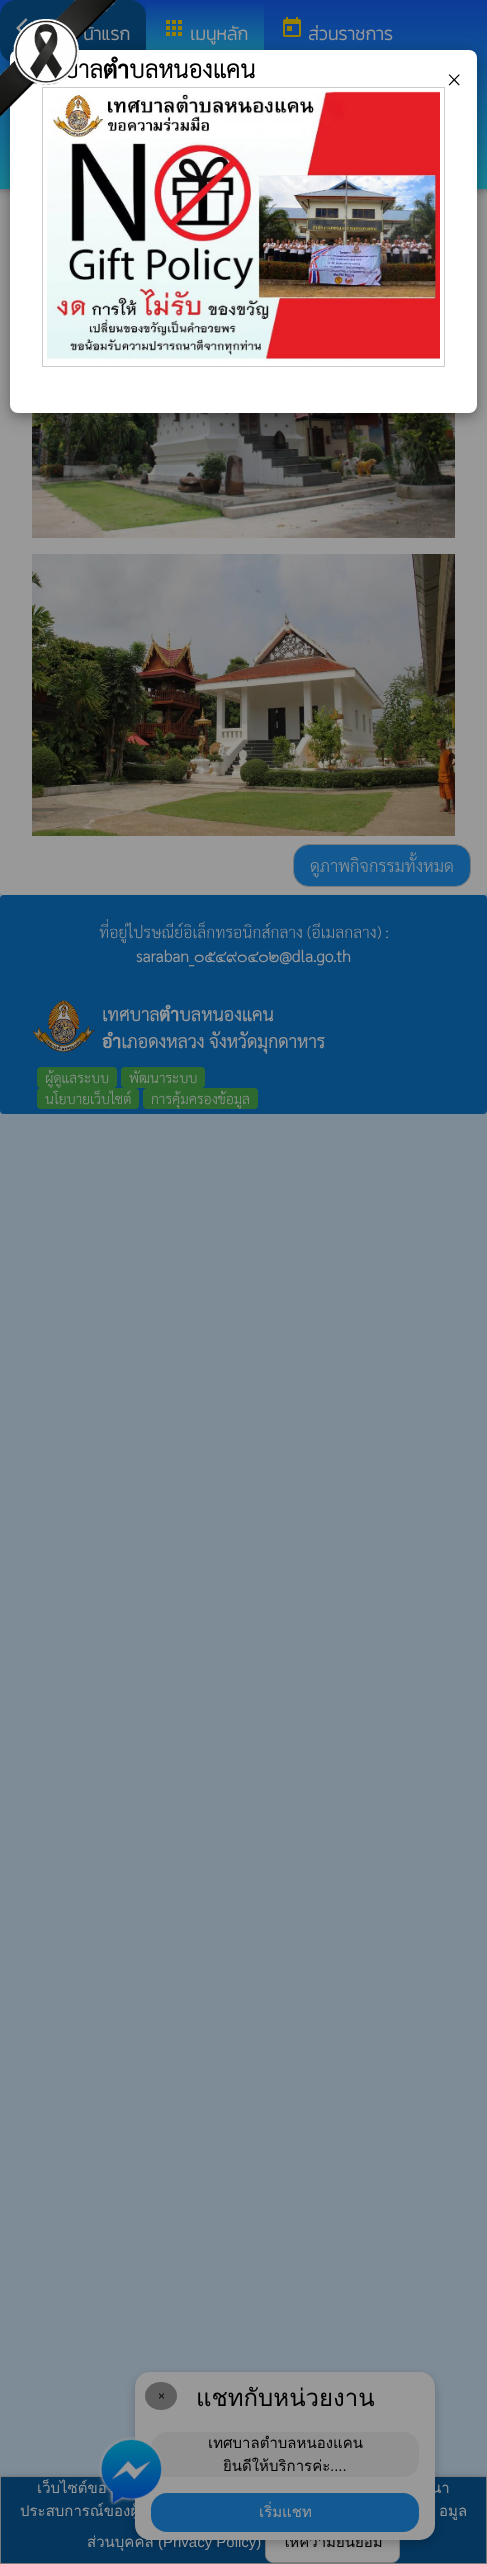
<svg xmlns="http://www.w3.org/2000/svg" width="487" height="2564" viewBox="0 0 487 2564">
  <defs>
    <linearGradient id="g1" gradientUnits="userSpaceOnUse" x1="244" y1="0" x2="244" y2="189"><stop offset="0" stop-color="rgb(11,59,153)"/><stop offset="1" stop-color="rgb(26,134,153)"/></linearGradient>
    <linearGradient id="g2" gradientUnits="userSpaceOnUse" x1="205" y1="0" x2="205" y2="63"><stop offset="0" stop-color="rgb(11,59,153)"/><stop offset="1" stop-color="rgb(26,134,153)"/></linearGradient>
    <clipPath id="clip1"><rect x="102" y="1000" width="353" height="54"/></clipPath>
  </defs>
  <rect width="100%" height="100%" fill="rgb(126,140,152)"/>
  <rect x="0" y="189" width="487" height="706" rx="4" fill="rgb(153,153,153)"/>
  <rect x="0" y="2" width="487" height="189" fill="rgba(0,0,0,0.12)" filter="blur(5px)"/>
  <rect x="0" y="2" width="487" height="189" fill="rgba(0,0,0,0.16)" filter="blur(2.5px)"/>
  <rect x="0" y="0" width="487" height="189" fill="url(#g1)"/>
  <rect x="0" y="0" width="146" height="63" rx="16" fill="rgb(5,54,94)"/>
  <path d="M27.5 20L19.5 28L27.5 36L26 38L16 28L26 18Z" fill="rgb(153,153,153)"/>
  <text x="83" y="40" font-family="Kanit" font-size="18" font-weight="bold" fill="rgb(153,153,153)">น้าแรก</text>
  <rect x="146" y="3" width="118" height="47" fill="url(#g2)"/>
  <image x="166" y="20" width="16" height="16" href="pic2.png"/>
  <image x="283" y="17" width="18" height="20" href="pic3.png"/>
  <image x="32" y="413" width="423" height="125" href="pic4.png"/>
  <rect x="10" y="54" width="467" height="363" rx="8" fill="rgba(0,0,0,0.19)" filter="blur(10px)"/>
  <rect x="10" y="54" width="467" height="363" rx="8" fill="rgba(0,0,0,0.2)" filter="blur(5px)"/>
  <rect x="10" y="50" width="467" height="363" rx="8" fill="rgb(255,255,255)"/>
  <text x="63" y="78" font-family="Sarabun" font-size="24" font-weight="bold" fill="rgb(0,0,0)">บาลตำบลหนองแคน</text>
  <rect x="42.5" y="87.5" width="402" height="279" fill="none" stroke="rgb(204,204,204)"/>
  <image x="47" y="91" width="393" height="271" href="pic7.png"/>
  <image x="0" y="0" width="117" height="117" href="pic1.png"/>
  <g font-family="Kanit" font-size="18" font-weight="bold" fill="rgb(153,153,153)">
    <text x="190" y="40">เมนูหลัก</text>
    <text x="308" y="40">ส่วนราชการ</text>
  </g>
  <image x="32" y="554" width="423" height="282" href="pic5.png"/>
  <rect x="293.5" y="844.5" width="177" height="42" rx="15.5" fill="rgb(20,90,146)" stroke="rgb(122,122,122)"/>
  <text x="310" y="872" font-family="Sarabun" font-size="17" font-weight="200" fill="rgb(153,153,153)">ดูภาพกิจกรรมทั้งหมด</text>
  <rect x="0" y="895" width="487" height="219" rx="4" fill="rgb(7,72,125)"/>
  <text x="99" y="938" font-family="Sarabun" font-size="16" font-weight="200" fill="rgb(153,153,153)">ที่อยู่ไปรษณีย์อิเล็กทรอนิกส์กลาง (อีเมลกลาง) :</text>
  <text x="136" y="962" font-family="Sarabun" font-size="16" font-weight="bold" fill="rgb(153,153,153)">saraban_๐๕๔๙๐๔๐๒@dla.go.th</text>
  <image x="32" y="1000" width="64" height="52" href="pic6.png"/>
  <text x="102" y="1021" font-family="Sarabun" font-size="18" font-weight="bold" fill="rgb(153,153,153)">เทศบาลตำบลหนองแคน</text>
  <g clip-path="url(#clip1)">
    <text x="102" y="1048" font-family="Sarabun" font-size="18" font-weight="bold" fill="rgb(153,153,153)">อำเภอดงหลวง จังหวัดมุกดาหาร</text>
  </g>
  <rect x="37" y="1067" width="80" height="21" rx="4" fill="rgb(46,105,48)"/>
  <text x="45" y="1083" font-family="Sarabun" font-size="14" font-weight="200" fill="rgb(153,153,153)">ผู้ดูแลระบบ</text>
  <rect x="121" y="1067" width="84" height="21" rx="4" fill="rgb(46,105,48)"/>
  <text x="129" y="1083" font-family="Sarabun" font-size="14" font-weight="200" fill="rgb(153,153,153)">พัฒนาระบบ</text>
  <rect x="37" y="1088" width="102" height="21" rx="4" fill="rgb(46,105,48)"/>
  <text x="45" y="1104" font-family="Sarabun" font-size="14" font-weight="200" fill="rgb(153,153,153)">นโยบายเว็บไซต์</text>
  <rect x="143" y="1088" width="115" height="21" rx="4" fill="rgb(46,105,48)"/>
  <text x="151" y="1104" font-family="Sarabun" font-size="14" font-weight="200" fill="rgb(153,153,153)">การคุ้มครองข้อมูล</text>
  <text x="447" y="86" font-family="Sarabun" font-size="24" font-weight="200" fill="rgb(0,0,0)">×</text>
  <rect x="0" y="2478" width="487" height="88" fill="rgba(0,0,0,0.12)" filter="blur(5px)"/>
  <rect x="0" y="2478" width="487" height="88" fill="rgba(0,0,0,0.16)" filter="blur(2.5px)"/>
  <rect x="0.5" y="2476.5" width="486" height="87" fill="rgb(5,54,94)" stroke="rgb(122,122,122)"/>
  <rect x="265.5" y="2522.5" width="134" height="40" rx="7.5" fill="rgb(153,153,153)" stroke="rgb(122,122,122)"/>
  <rect x="135" y="2376" width="300" height="168" rx="15" fill="rgba(0,0,0,0.2)" filter="blur(5px)"/>
  <text x="282" y="2547" font-family="Loma" font-size="15" fill="rgb(0,0,0)">ให้ความยินยอม</text>
  <rect x="135" y="2372" width="300" height="168" rx="15" fill="rgb(153,153,153)"/>
  <ellipse cx="161" cy="2396" rx="16" ry="14" fill="rgb(95,95,95)"/>
  <text x="158" y="2400" font-family="Liberation Sans" font-size="12" fill="rgb(0,0,0)">×</text>
  <text x="196" y="2406" font-family="Loma" font-size="24" fill="rgb(0,0,0)">แชทกับหน่วยงาน</text>
  <rect x="151" y="2432" width="268" height="45" rx="16" fill="rgb(145,145,145)"/>
  <g font-family="Loma" font-size="15" fill="rgb(0,0,0)">
    <text x="208" y="2448">เทศบาลตำบลหนองแคน</text>
    <text x="223" y="2471">ยินดีให้บริการค่ะ</text>
  </g>
  <text x="330" y="2471" font-family="Liberation Sans" font-size="15" fill="rgb(0,0,0)">....</text>
  <rect x="151" y="2493" width="268" height="39" rx="16" fill="rgb(20,90,146)"/>
  <g font-family="Loma" font-size="15" fill="rgb(153,153,153)">
    <text x="37" y="2493" word-spacing="-1">เว็บไซต์ขอ</text>
    <text x="20" y="2516" word-spacing="-1">ประสบการณ์ของผู้</text>
  </g>
  <image x="98" y="2436" width="65" height="69" href="pic8.png"/>
  <g font-family="Loma" font-size="15" fill="rgb(153,153,153)">
    <text x="259" y="2517">เริ่มแชท</text>
    <text x="431" y="2493" word-spacing="-1">นา</text>
    <text x="439" y="2516" word-spacing="-1">อมูล</text>
    <text x="87" y="2547">ส่วนบุคคล</text>
  </g>
  <text x="158" y="2547" font-family="Liberation Sans" font-size="15" fill="rgb(153,153,153)">(Privacy Policy)</text>
</svg>
